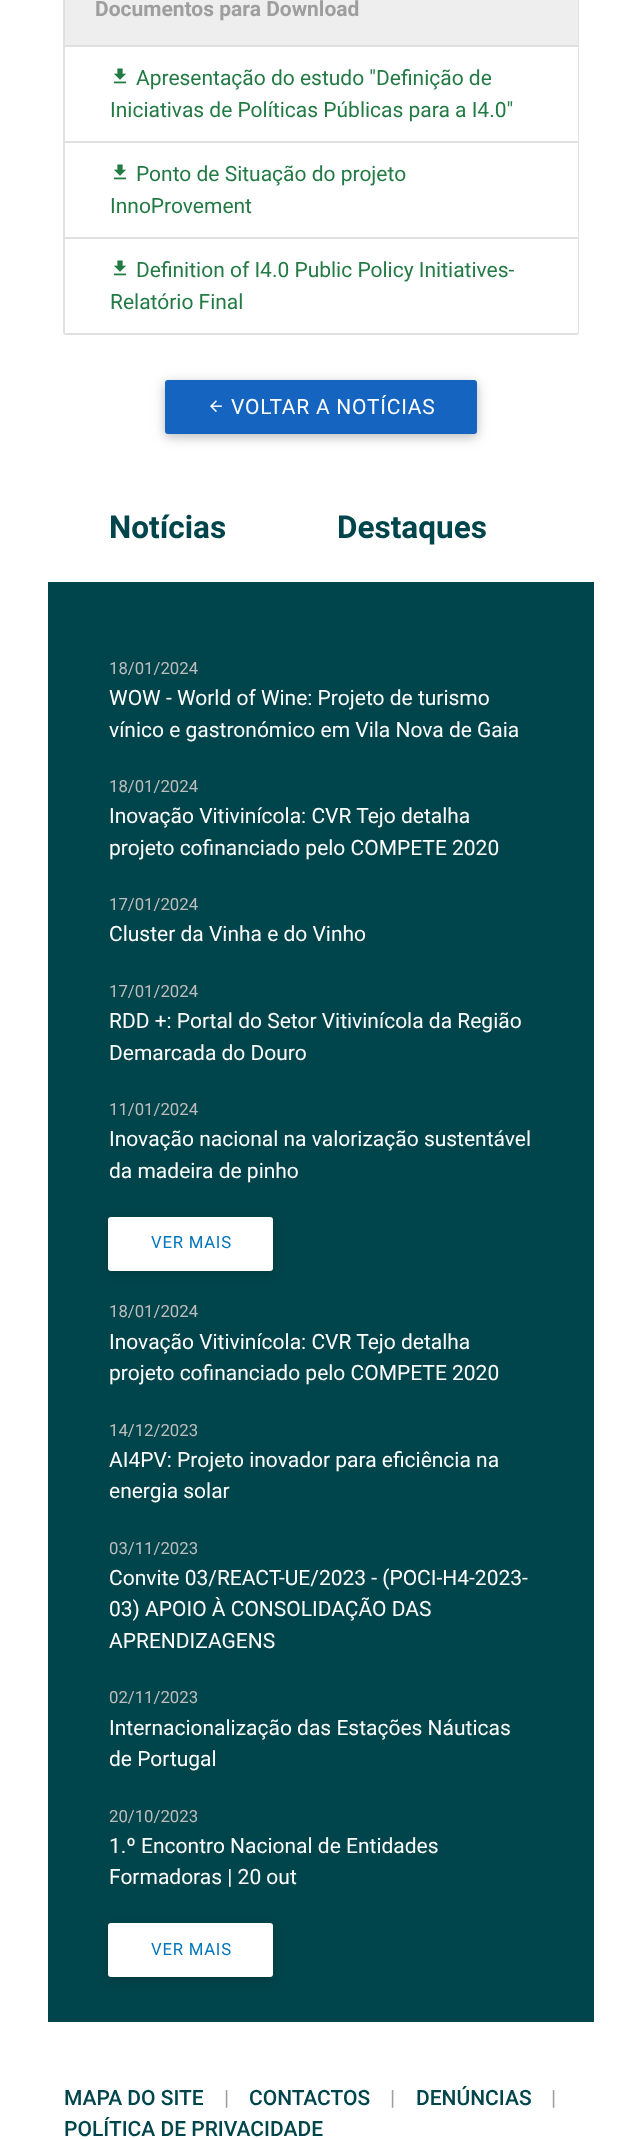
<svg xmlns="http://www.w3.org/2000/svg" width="641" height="2139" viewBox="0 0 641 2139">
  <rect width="100%" height="100%" fill="rgb(255,255,255)"/>
  <rect x="64" y="-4" width="514" height="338" rx="2" fill="none" stroke="rgb(224,224,224)" stroke-width="2"/>
  <rect x="65" y="0" width="513" height="45" fill="rgb(238,238,238)"/>
  <rect x="65" y="45" width="513" height="2" fill="rgb(224,224,224)"/>
  <text x="95" y="16" font-family="Roboto" font-size="21" font-weight="bold" fill="rgb(158,158,158)">Documentos para Download</text>
  <rect x="577" y="47" width="1" height="94" fill="rgb(255,255,255)"/>
  <rect x="65" y="141" width="513" height="2" fill="rgb(224,224,224)"/>
  <image x="113" y="68" width="14" height="16" href="pic1.png"/>
  <g font-family="Roboto" font-size="21" fill="rgb(35,122,68)">
    <text x="136" y="85">Apresentação do estudo "Definição de</text>
    <text x="110" y="117">Iniciativas de Políticas Públicas para a I4.0"</text>
  </g>
  <rect x="577" y="143" width="1" height="94" fill="rgb(255,255,255)"/>
  <rect x="65" y="237" width="513" height="2" fill="rgb(224,224,224)"/>
  <image x="113" y="164" width="14" height="16" href="pic1.png"/>
  <g font-family="Roboto" font-size="21" fill="rgb(35,122,68)">
    <text x="136" y="181">Ponto de Situação do projeto</text>
    <text x="110" y="213">InnoProvement</text>
  </g>
  <path d="M65 239H578V331.5C578 332.5 577.5 333 576.5 333H66.5C65.5 333 65 332.5 65 331.5Z" fill="rgb(255,255,255)"/>
  <image x="113" y="260" width="14" height="16" href="pic1.png"/>
  <g font-family="Roboto" font-size="21" fill="rgb(35,122,68)">
    <text x="136" y="277">Definition of I4.0 Public Policy Initiatives-</text>
    <text x="110" y="309">Relatório Final</text>
  </g>
  <rect x="165" y="383" width="312" height="54" rx="3" fill="rgba(0,0,0,0.12)" filter="blur(7.5px)"/>
  <rect x="165" y="383" width="312" height="54" rx="3" fill="rgba(0,0,0,0.16)" filter="blur(4px)"/>
  <rect x="165" y="380" width="312" height="54" rx="3" fill="rgb(21,101,192)"/>
  <image x="210" y="400" width="12" height="12" href="pic2.png"/>
  <text x="231" y="414" font-family="Roboto" font-size="21" letter-spacing="0.75" fill="rgb(255,255,255)">VOLTAR A NOTÍCIAS</text>
  <g font-family="Roboto" font-size="31.5" font-weight="bold" fill="rgb(0,69,75)">
    <text x="109" y="538">Notícias</text>
    <text x="337" y="538">Destaques</text>
  </g>
  <rect x="48" y="582" width="546" height="1440" fill="rgb(0,69,75)"/>
  <text x="109" y="674" font-family="Roboto" font-size="16.75" fill="rgb(189,189,189)">18/01/2024</text>
  <g font-family="Roboto" font-size="21" fill="rgb(255,255,255)">
    <text>
      <tspan x="109" y="705">WOW - World of Wine: Projeto de turismo</tspan>
      <tspan x="109" y="737">vínico e gastronómico em Vila Nova de Gaia</tspan>
    </text>
  </g>
  <text x="109" y="792" font-family="Roboto" font-size="16.75" fill="rgb(189,189,189)">18/01/2024</text>
  <g font-family="Roboto" font-size="21" fill="rgb(255,255,255)">
    <text>
      <tspan x="109" y="823">Inovação Vitivinícola: CVR Tejo detalha</tspan>
      <tspan x="109" y="855">projeto cofinanciado pelo COMPETE 2020</tspan>
    </text>
  </g>
  <text x="109" y="910" font-family="Roboto" font-size="16.75" fill="rgb(189,189,189)">17/01/2024</text>
  <text x="109" y="941" font-family="Roboto" font-size="21" fill="rgb(255,255,255)">Cluster da Vinha e do Vinho</text>
  <text x="109" y="997" font-family="Roboto" font-size="16.75" fill="rgb(189,189,189)">17/01/2024</text>
  <g font-family="Roboto" font-size="21" fill="rgb(255,255,255)">
    <text>
      <tspan x="109" y="1028">RDD +: Portal do Setor Vitivinícola da Região</tspan>
      <tspan x="109" y="1060">Demarcada do Douro</tspan>
    </text>
  </g>
  <text x="109" y="1115" font-family="Roboto" font-size="16.75" fill="rgb(189,189,189)">11/01/2024</text>
  <g font-family="Roboto" font-size="21" fill="rgb(255,255,255)">
    <text>
      <tspan x="109" y="1146">Inovação nacional na valorização sustentável</tspan>
      <tspan x="109" y="1178">da madeira de pinho</tspan>
    </text>
  </g>
  <rect x="108" y="1220" width="165" height="54" rx="3" fill="rgba(0,0,0,0.16)" filter="blur(4px)"/>
  <rect x="108" y="1217" width="165" height="54" rx="3" fill="rgb(255,255,255)"/>
  <text x="151" y="1248" font-family="Roboto" font-size="16.75" letter-spacing="0.75" fill="rgb(2,119,189)">VER MAIS</text>
  <text x="109" y="1317" font-family="Roboto" font-size="16.75" fill="rgb(189,189,189)">18/01/2024</text>
  <g font-family="Roboto" font-size="21" fill="rgb(255,255,255)">
    <text>
      <tspan x="109" y="1349">Inovação Vitivinícola: CVR Tejo detalha</tspan>
      <tspan x="109" y="1380">projeto cofinanciado pelo COMPETE 2020</tspan>
    </text>
  </g>
  <text x="109" y="1436" font-family="Roboto" font-size="16.75" fill="rgb(189,189,189)">14/12/2023</text>
  <g font-family="Roboto" font-size="21" fill="rgb(255,255,255)">
    <text>
      <tspan x="109" y="1467">AI4PV: Projeto inovador para eficiência na</tspan>
      <tspan x="109" y="1498">energia solar</tspan>
    </text>
  </g>
  <text x="109" y="1554" font-family="Roboto" font-size="16.75" fill="rgb(189,189,189)">03/11/2023</text>
  <g font-family="Roboto" font-size="21" fill="rgb(255,255,255)">
    <text>
      <tspan x="109" y="1585">Convite 03/REACT-UE/2023 - (POCI-H4-2023-</tspan>
      <tspan x="109" y="1616">03) APOIO À CONSOLIDAÇÃO DAS</tspan>
      <tspan x="109" y="1648">APRENDIZAGENS</tspan>
    </text>
  </g>
  <text x="109" y="1703" font-family="Roboto" font-size="16.75" fill="rgb(189,189,189)">02/11/2023</text>
  <g font-family="Roboto" font-size="21" fill="rgb(255,255,255)">
    <text>
      <tspan x="109" y="1735">Internacionalização das Estações Náuticas</tspan>
      <tspan x="109" y="1766">de Portugal</tspan>
    </text>
  </g>
  <text x="109" y="1822" font-family="Roboto" font-size="16.75" fill="rgb(189,189,189)">20/10/2023</text>
  <g font-family="Roboto" font-size="21" fill="rgb(255,255,255)">
    <text>
      <tspan x="109" y="1853">1.º Encontro Nacional de Entidades</tspan>
      <tspan x="109" y="1884">Formadoras | 20 out</tspan>
    </text>
  </g>
  <rect x="108" y="1926" width="165" height="54" rx="3" fill="rgba(0,0,0,0.16)" filter="blur(4px)"/>
  <rect x="108" y="1923" width="165" height="54" rx="3" fill="rgb(255,255,255)"/>
  <text x="151" y="1955" font-family="Roboto" font-size="16.75" letter-spacing="0.75" fill="rgb(2,119,189)">VER MAIS</text>
  <text x="64" y="2105" font-family="Roboto" font-size="21" font-weight="500" fill="rgb(0,69,75)">MAPA DO SITE</text>
  <text x="224" y="2105" font-family="Roboto" font-size="21" fill="rgb(158,158,158)">|</text>
  <text x="249" y="2105" font-family="Roboto" font-size="21" font-weight="500" fill="rgb(0,69,75)">CONTACTOS</text>
  <text x="390" y="2105" font-family="Roboto" font-size="21" fill="rgb(158,158,158)">|</text>
  <text x="416" y="2105" font-family="Roboto" font-size="21" font-weight="500" fill="rgb(0,69,75)">DENÚNCIAS</text>
  <text x="551" y="2105" font-family="Roboto" font-size="21" fill="rgb(158,158,158)">|</text>
  <text x="64" y="2136" font-family="Roboto" font-size="21" font-weight="500" fill="rgb(0,69,75)">POLÍTICA DE PRIVACIDADE</text>
</svg>
